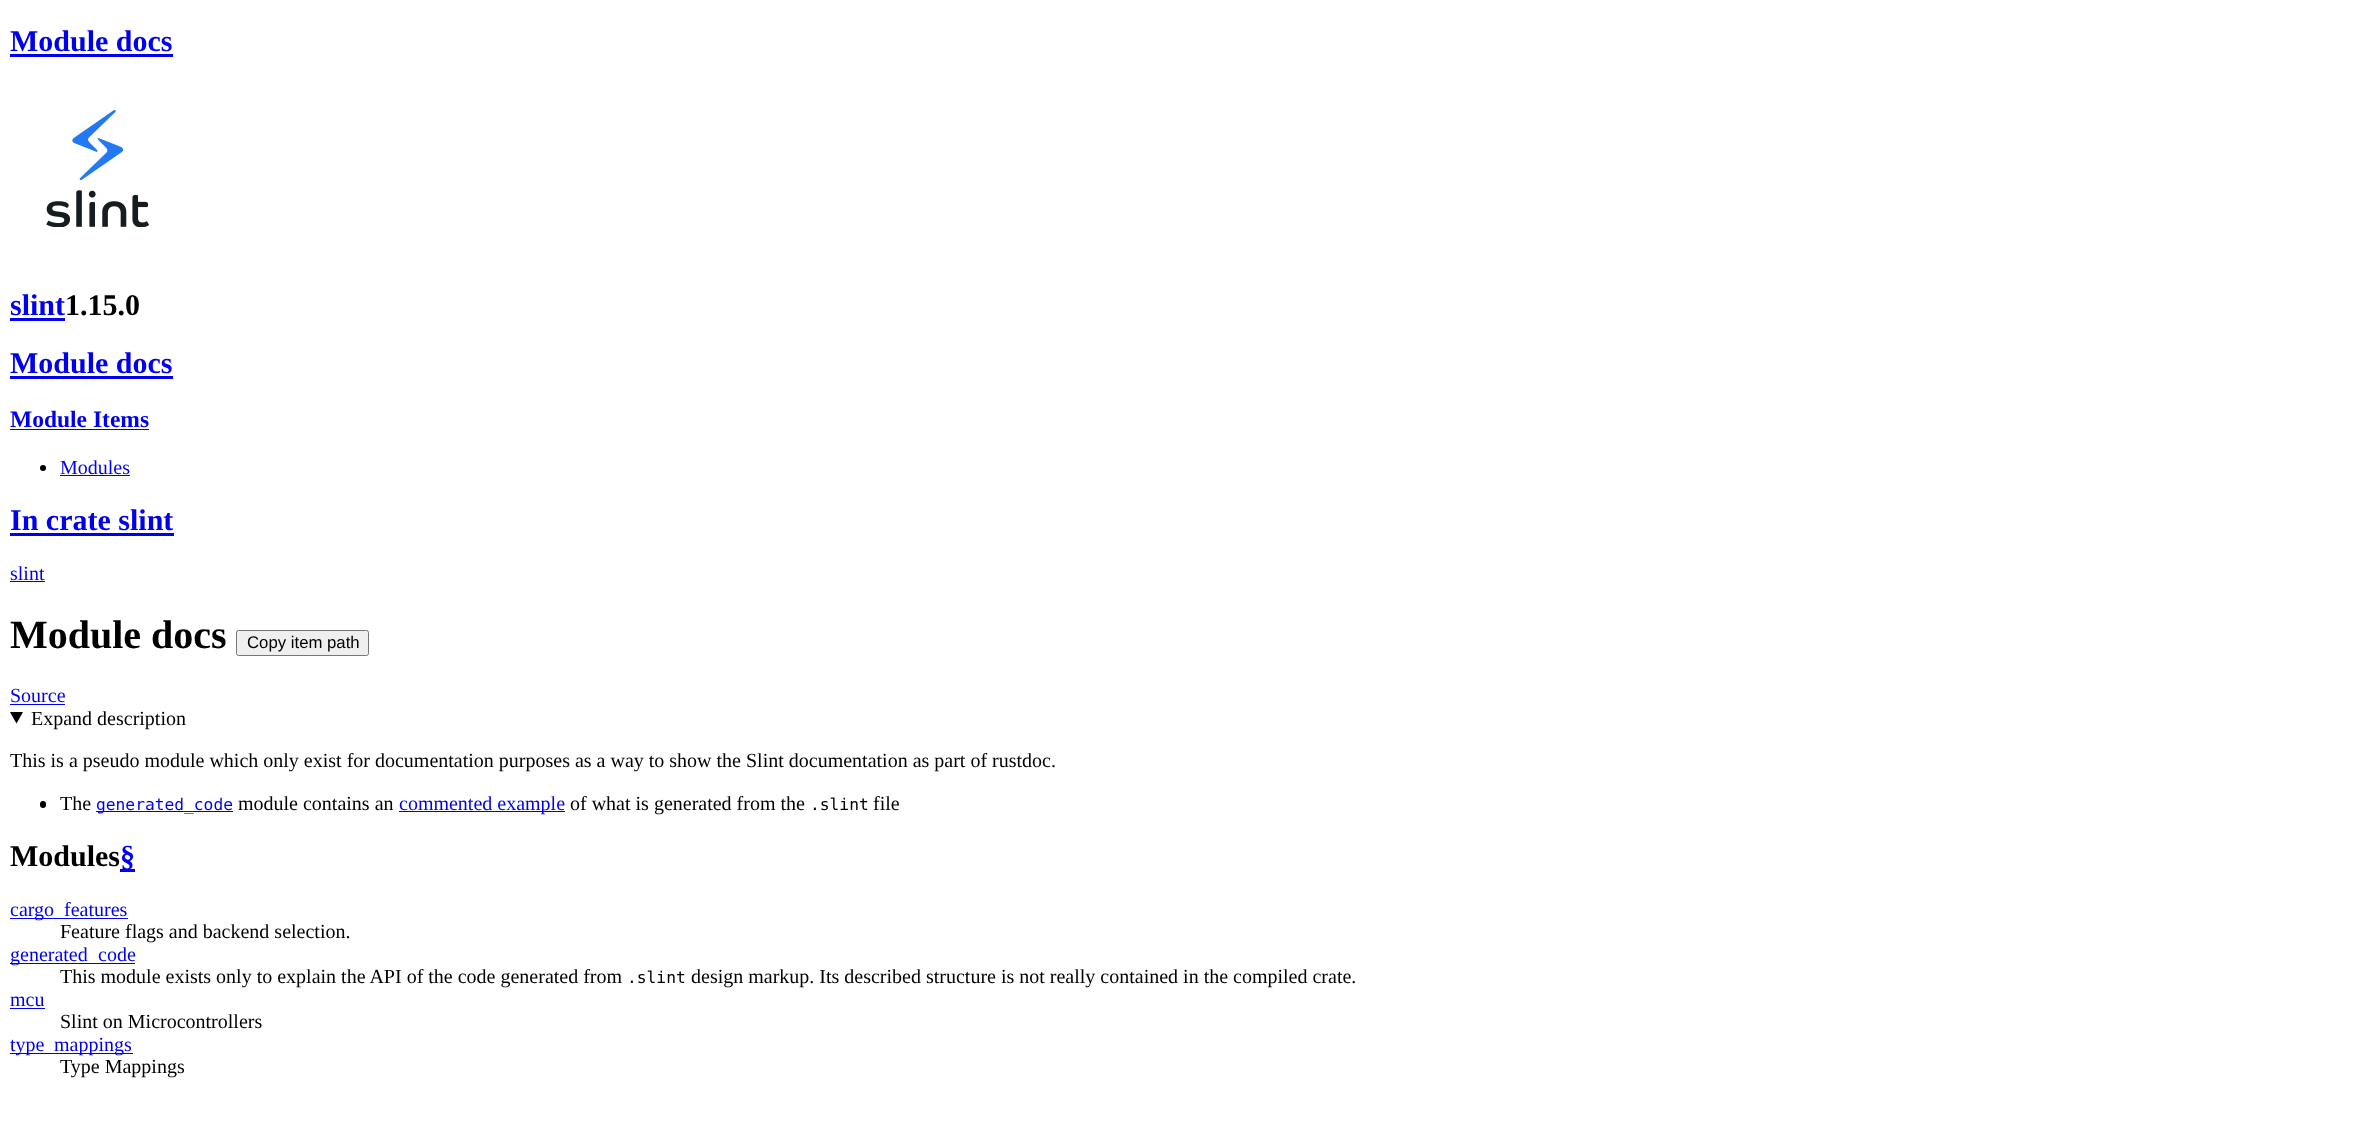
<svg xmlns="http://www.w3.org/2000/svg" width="2359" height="1122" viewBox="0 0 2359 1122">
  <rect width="100%" height="100%" fill="rgb(255,255,255)"/>
  <text x="10" y="51" font-family="Liberation Serif" font-size="30" font-weight="bold" fill="rgb(0,0,238)">Module docs</text>
  <rect x="10" y="54" width="163" height="3" fill="rgb(0,0,238)"/>
  <image x="46" y="110" width="103" height="117" href="pic1.png"/>
  <text x="10" y="315" font-family="Liberation Serif" font-size="30" font-weight="bold" fill="rgb(0,0,238)">slint</text>
  <rect x="10" y="318" width="55" height="3" fill="rgb(0,0,238)"/>
  <text x="65" y="315" font-family="Liberation Serif" font-size="30" font-weight="bold" fill="rgb(0,0,0)">1.15.0</text>
  <text x="10" y="373" font-family="Liberation Serif" font-size="30" font-weight="bold" fill="rgb(0,0,238)">Module docs</text>
  <rect x="10" y="376" width="163" height="3" fill="rgb(0,0,238)"/>
  <text x="10" y="427" font-family="Liberation Serif" font-size="23.5" font-weight="bold" fill="rgb(0,0,238)">Module Items</text>
  <rect x="10" y="429" width="139" height="1" fill="rgb(0,0,238)"/>
  <circle cx="43" cy="468" r="3" fill="rgb(0,0,0)"/>
  <text x="60" y="474" font-family="Liberation Serif" font-size="20" fill="rgb(0,0,238)">Modules</text>
  <rect x="60" y="475" width="70" height="1" fill="rgb(0,0,238)"/>
  <text x="10" y="530" font-family="Liberation Serif" font-size="30" font-weight="bold" fill="rgb(0,0,238)">In crate slint</text>
  <rect x="10" y="533" width="164" height="3" fill="rgb(0,0,238)"/>
  <text x="10" y="580" font-family="Liberation Serif" font-size="20" fill="rgb(0,0,238)">slint</text>
  <rect x="10" y="581" width="35" height="1" fill="rgb(0,0,238)"/>
  <text x="10" y="648" font-family="Liberation Serif" font-size="40" font-weight="bold" fill="rgb(0,0,0)">Module docs</text>
  <rect x="236.5" y="630.5" width="132" height="25" rx="2" fill="rgb(239,239,239)" stroke="rgb(118,118,118)"/>
  <text x="247" y="648" font-family="Liberation Sans" font-size="16.75" fill="rgb(0,0,0)">Copy item path</text>
  <text x="10" y="702" font-family="Liberation Serif" font-size="20" fill="rgb(0,0,238)">Source</text>
  <rect x="10" y="704" width="55" height="1" fill="rgb(0,0,238)"/>
  <path d="M10 712H23L16.5 723.5Z" fill="rgb(0,0,0)"/>
  <g font-family="Liberation Serif" font-size="20" fill="rgb(0,0,0)">
    <text x="31" y="725">Expand description</text>
    <text x="10" y="767">This is a pseudo module which only exist for documentation purposes as a way to show the Slint documentation as part of rustdoc.</text>
  </g>
  <rect x="40" y="801" width="6" height="7" rx="3" fill="rgb(0,0,0)"/>
  <text x="60" y="810" font-family="Liberation Serif" font-size="20" fill="rgb(0,0,0)">The</text>
  <rect x="96" y="811" width="137" height="1" fill="rgb(0,0,238)"/>
  <text x="96" y="810" font-family="DejaVu Sans Mono" font-size="16.25" fill="rgb(0,0,238)">generated_code</text>
  <text x="238" y="810" font-family="Liberation Serif" font-size="20" fill="rgb(0,0,0)">module contains an</text>
  <rect x="399" y="811" width="166" height="1" fill="rgb(0,0,238)"/>
  <text x="399" y="810" font-family="Liberation Serif" font-size="20" fill="rgb(0,0,238)">commented example</text>
  <text x="570" y="810" font-family="Liberation Serif" font-size="20" fill="rgb(0,0,0)">of what is generated from the</text>
  <text x="810" y="810" font-family="DejaVu Sans Mono" font-size="16.25" fill="rgb(0,0,0)">.slint</text>
  <text x="873" y="810" font-family="Liberation Serif" font-size="20" fill="rgb(0,0,0)">file</text>
  <text x="10" y="866" font-family="Liberation Serif" font-size="30" font-weight="bold" fill="rgb(0,0,0)">Modules</text>
  <rect x="120" y="869" width="15" height="3" fill="rgb(0,0,238)"/>
  <text x="120" y="866" font-family="Liberation Serif" font-size="30" font-weight="bold" fill="rgb(0,0,238)">§</text>
  <rect x="10" y="918" width="118" height="1" fill="rgb(0,0,238)"/>
  <g font-family="Liberation Serif" font-size="20" fill="rgb(0,0,238)">
    <text x="10" y="916">cargo</text>
    <text x="64" y="916">features</text>
  </g>
  <text x="60" y="938" font-family="Liberation Serif" font-size="20" fill="rgb(0,0,0)">Feature flags and backend selection.</text>
  <rect x="10" y="963" width="125" height="1" fill="rgb(0,0,238)"/>
  <g font-family="Liberation Serif" font-size="20" fill="rgb(0,0,238)">
    <text x="10" y="961">generated</text>
    <text x="98" y="961">code</text>
  </g>
  <text x="60" y="983" font-family="Liberation Serif" font-size="20" fill="rgb(0,0,0)">This module exists only to explain the API of the code generated from</text>
  <text x="627" y="983" font-family="DejaVu Sans Mono" font-size="16.25" fill="rgb(0,0,0)">.slint</text>
  <text x="691" y="983" font-family="Liberation Serif" font-size="20" fill="rgb(0,0,0)">design markup. Its described structure is not really contained in the compiled crate.</text>
  <text x="10" y="1006" font-family="Liberation Serif" font-size="20" fill="rgb(0,0,238)">mcu</text>
  <rect x="10" y="1008" width="35" height="1" fill="rgb(0,0,238)"/>
  <text x="60" y="1028" font-family="Liberation Serif" font-size="20" fill="rgb(0,0,0)">Slint on Microcontrollers</text>
  <rect x="10" y="1053" width="123" height="1" fill="rgb(0,0,238)"/>
  <g font-family="Liberation Serif" font-size="20" fill="rgb(0,0,238)">
    <text x="10" y="1051">type</text>
    <text x="54" y="1051">mappings</text>
  </g>
  <text x="60" y="1073" font-family="Liberation Serif" font-size="20" fill="rgb(0,0,0)">Type Mappings</text>
</svg>
